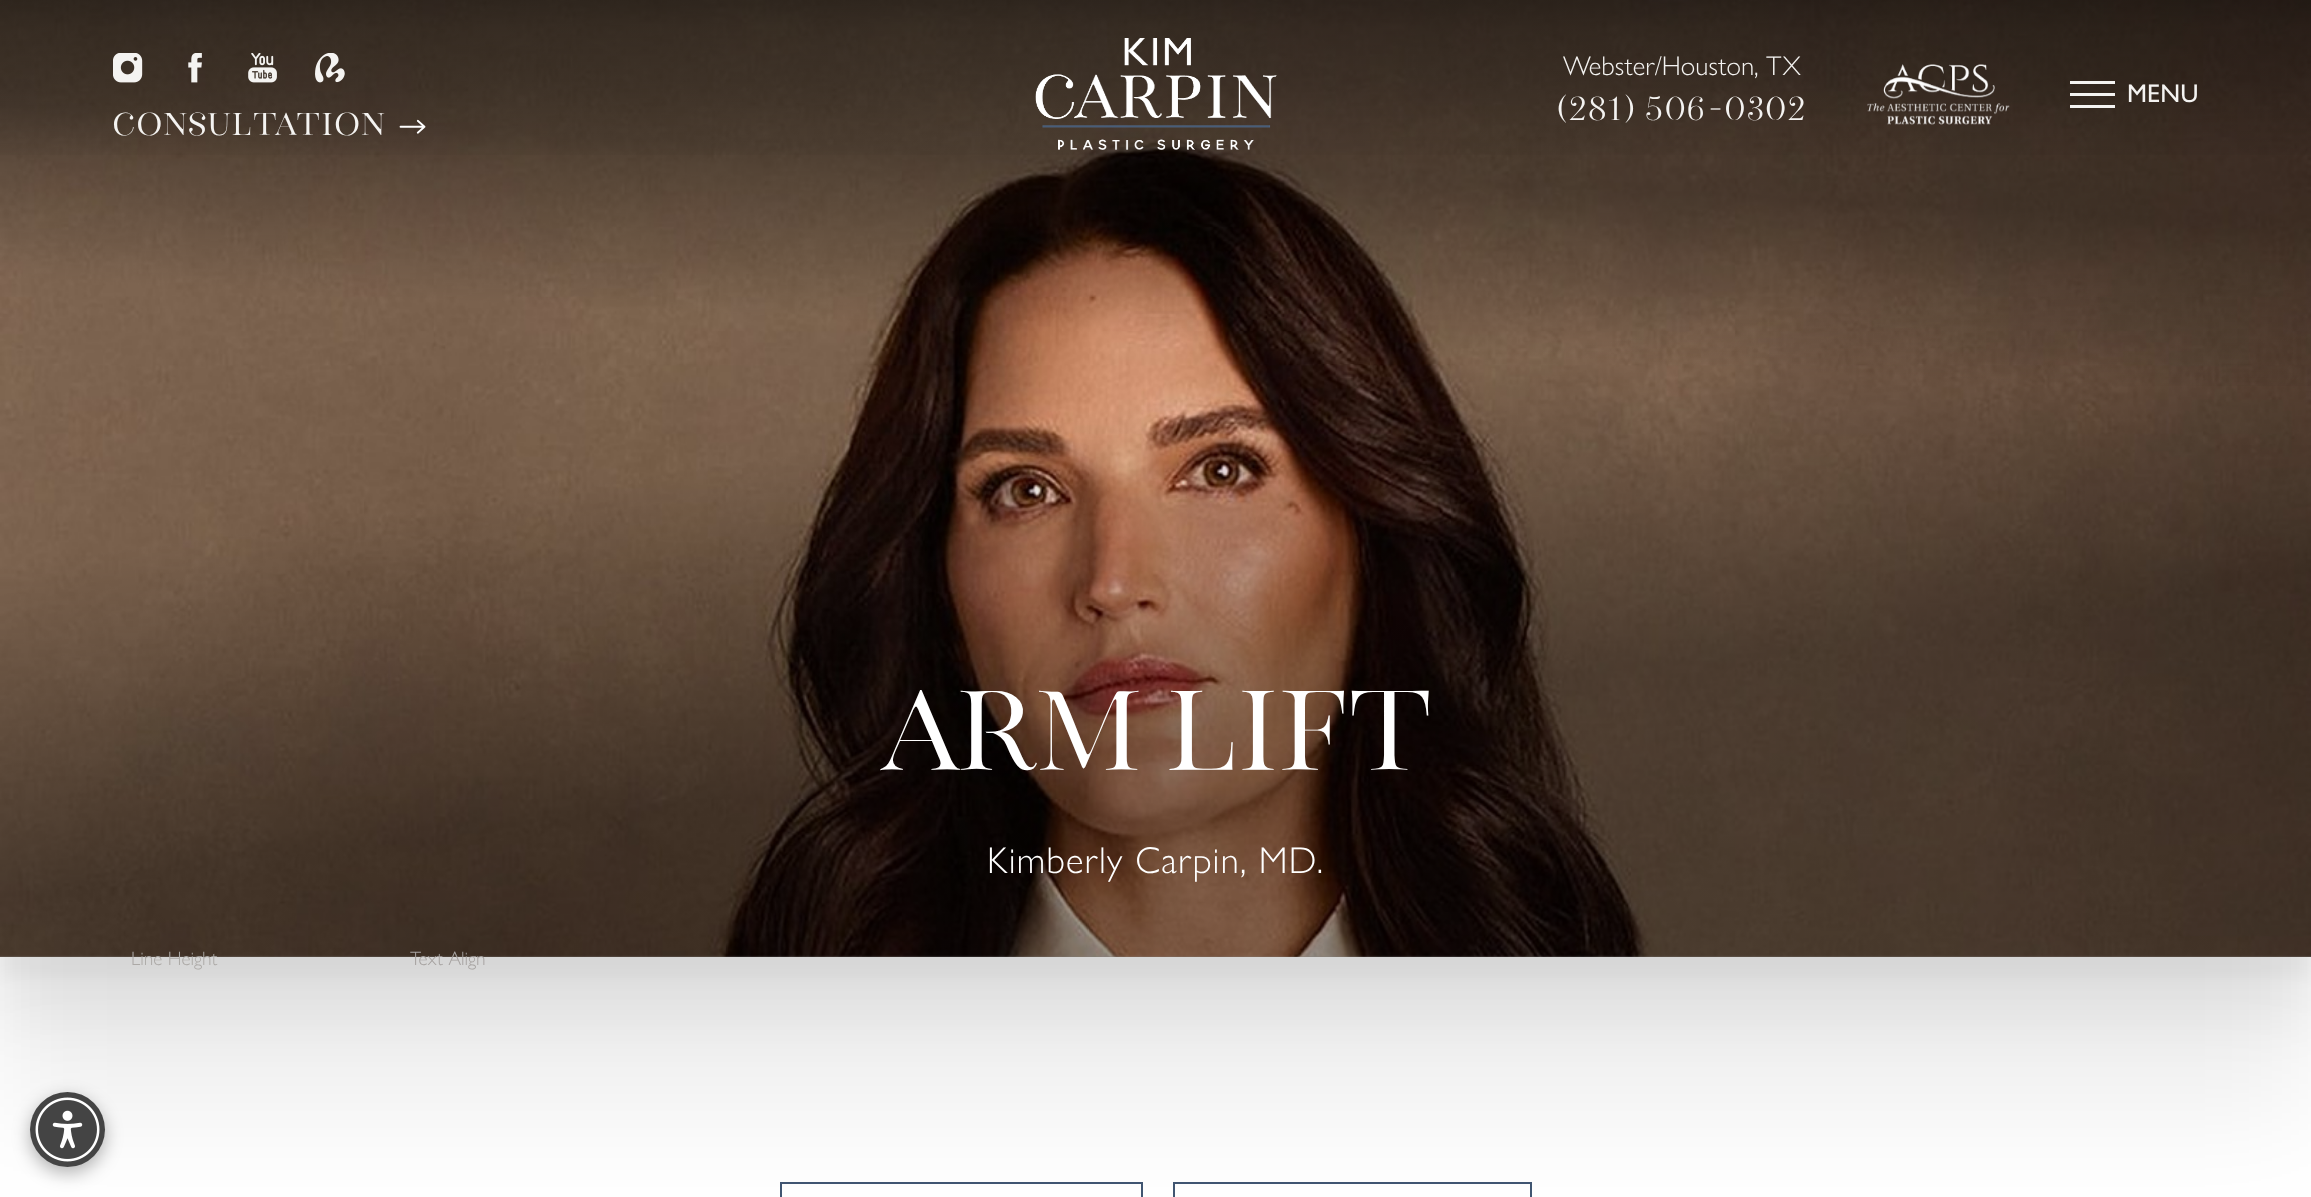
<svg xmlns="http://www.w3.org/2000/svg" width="2311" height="1197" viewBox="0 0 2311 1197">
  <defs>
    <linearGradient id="g1" gradientUnits="userSpaceOnUse" x1="1067" y1="-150" x2="1244" y2="1107"><stop offset="0.44" stop-color="rgb(0,0,0)" stop-opacity="0"/><stop offset="0.7" stop-color="rgb(0,0,0)" stop-opacity="0.4"/></linearGradient>
    <linearGradient id="g2" gradientUnits="userSpaceOnUse" x1="1184" y1="-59" x2="1128" y2="1016"><stop offset="0.21" stop-color="rgb(0,0,0)" stop-opacity="0.4"/><stop offset="0.37" stop-color="rgb(0,0,0)" stop-opacity="0"/></linearGradient>
    <linearGradient id="g3" gradientUnits="userSpaceOnUse" x1="1156" y1="188" x2="1156" y2="0"><stop offset="0.1" stop-color="rgb(0,0,0)" stop-opacity="0"/><stop offset="0.35" stop-color="rgb(0,0,0)" stop-opacity="0.1"/><stop offset="0.55" stop-color="rgb(0,0,0)" stop-opacity="0.2"/><stop offset="0.85" stop-color="rgb(0,0,0)" stop-opacity="0.3"/><stop offset="1" stop-color="rgb(0,0,0)" stop-opacity="0.4"/></linearGradient>
  </defs>
  <rect width="100%" height="100%" fill="rgb(255,255,255)"/>
  <rect x="781" y="1183" width="361" height="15" fill="none" stroke="rgb(65,86,114)" stroke-width="2"/>
  <rect x="1174" y="1183" width="357" height="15" fill="none" stroke="rgb(65,86,114)" stroke-width="2"/>
  <rect x="0" y="150" width="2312" height="957" fill="rgba(0,0,0,0.07)" filter="blur(60px)"/>
  <rect x="0" y="63" width="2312" height="957" fill="rgba(0,0,0,0.05)" filter="blur(25px)"/>
  <rect x="0" y="20" width="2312" height="957" fill="rgba(0,0,0,0.04)" filter="blur(7.5px)"/>
  <image x="0" y="0" width="2311" height="957" href="pic8.png"/>
  <rect x="0" y="260" width="2311" height="697" fill="url(#g1)"/>
  <rect x="0" y="0" width="2311" height="386" fill="url(#g2)"/>
  <rect x="0" y="0" width="2311" height="155" fill="url(#g3)"/>
  <image x="113" y="53" width="30" height="30" href="pic1.png"/>
  <image x="188" y="53" width="14" height="30" href="pic2.png"/>
  <image x="248" y="53" width="29" height="30" href="pic3.png"/>
  <image x="315" y="53" width="30" height="30" href="pic4.png"/>
  <text x="113" y="135" font-family="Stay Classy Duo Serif" font-size="37.5" letter-spacing="1.9" fill="rgb(244,243,241)">CONSULTATION</text>
  <image x="399" y="119" width="27" height="15" href="pic5.png"/>
  <image x="1035" y="38" width="242" height="112" href="pic6.png"/>
  <text x="1563" y="75" font-family="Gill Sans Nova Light" font-size="27" font-weight="300" fill="rgb(244,243,241)">Webster/Houston, TX</text>
  <text x="1557" y="120" font-family="Stay Classy Duo Serif" font-size="37.5" letter-spacing="1.9" fill="rgb(244,243,241)">(281) 506-0302</text>
  <image x="1867" y="64" width="143" height="61" href="pic7.png"/>
  <rect x="2070" y="81" width="45" height="3" fill="rgb(244,243,241)"/>
  <rect x="2070" y="93" width="45" height="3" fill="rgb(244,243,241)"/>
  <rect x="2070" y="105" width="45" height="3" fill="rgb(244,243,241)"/>
  <text x="2127" y="102" font-family="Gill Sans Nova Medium" font-size="25.5" font-weight="500" fill="rgb(244,243,241)">MENU</text>
  <text x="882" y="770" font-family="Stay Classy Duo Serif" font-size="135" fill="rgb(255,255,255)">Arm Lift</text>
  <text x="987" y="873" font-family="Gill Sans Nova Light" font-size="37.5" font-weight="300" letter-spacing="1.1" fill="rgb(255,255,255)">Kimberly Carpin, MD.</text>
  <text x="131" y="965" font-family="Gill Sans Nova Light" font-size="19.5" font-weight="300" fill="rgb(172,169,166)">Line Height</text>
  <text x="410" y="965" font-family="Gill Sans Nova Light" font-size="19.5" font-weight="300" fill="rgb(166,162,160)">Text Align</text>
  <rect x="30" y="1098" width="75" height="75" rx="37.5" fill="rgba(0,0,0,0.3)" filter="blur(9px)"/>
  <circle cx="67.5" cy="1129.5" r="37.5" fill="rgb(68,68,68)"/>
  <image x="35" y="1097" width="65" height="65" href="pic9.png"/>
</svg>
